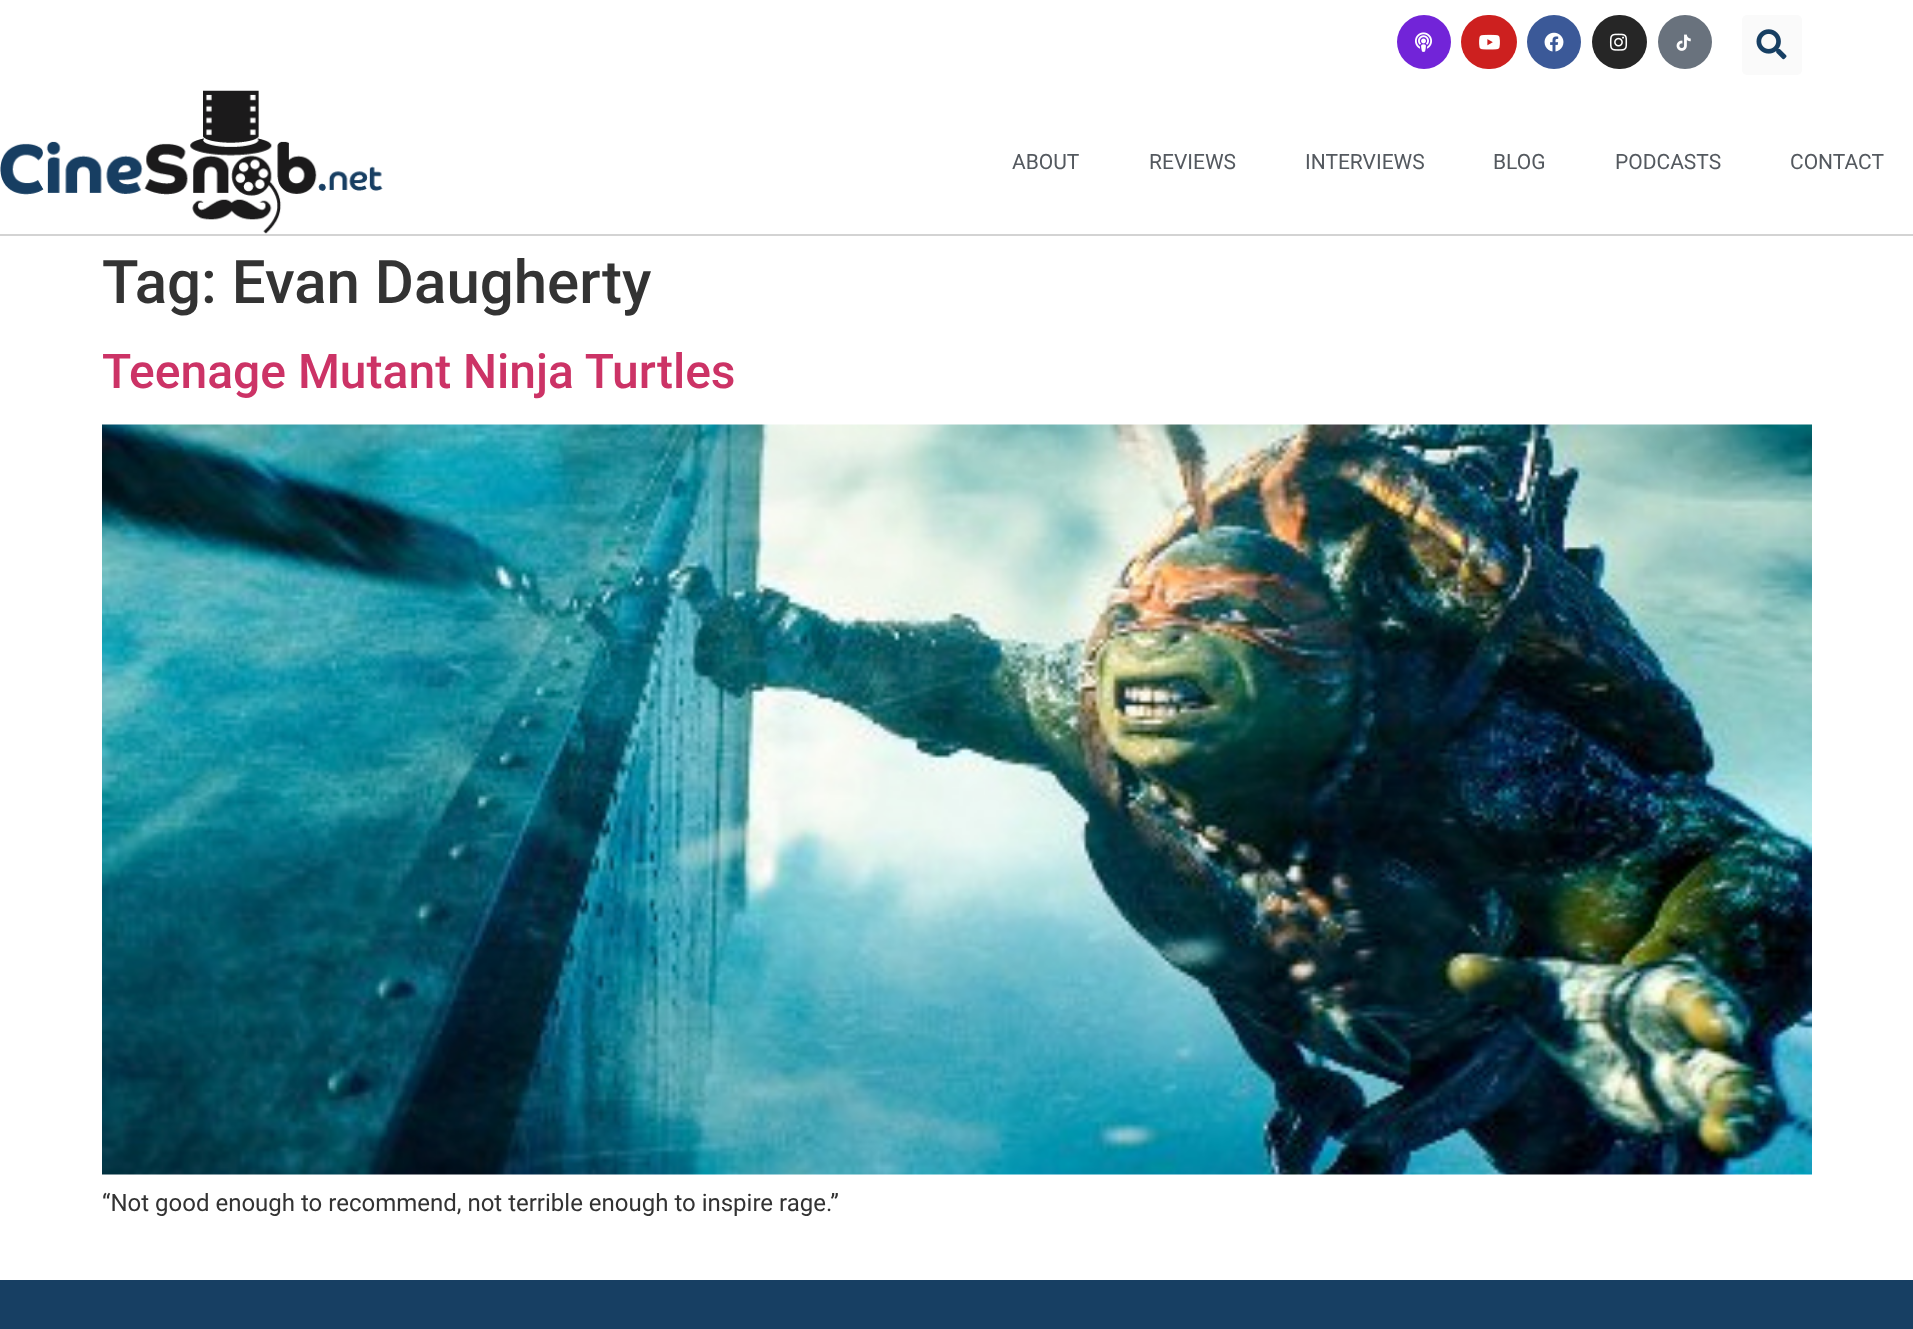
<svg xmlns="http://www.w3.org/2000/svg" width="1913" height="1329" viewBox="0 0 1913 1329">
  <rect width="100%" height="100%" fill="rgb(255,255,255)"/>
  <circle cx="1424" cy="42" r="27" fill="rgb(114,36,216)"/>
  <image x="1415" y="32" width="17" height="20" href="pic1.png"/>
  <rect x="1461" y="15" width="56" height="54" rx="27" fill="rgb(205,32,31)"/>
  <image x="1479" y="34" width="21" height="16" href="pic2.png"/>
  <circle cx="1554" cy="42" r="27" fill="rgb(59,89,152)"/>
  <image x="1544" y="32" width="20" height="20" href="pic3.png"/>
  <rect x="1592" y="15" width="55" height="54" rx="27" fill="rgb(38,38,38)"/>
  <image x="1609" y="33" width="19" height="18" href="pic4.png"/>
  <circle cx="1685" cy="42" r="27" fill="rgb(105,114,125)"/>
  <image x="1676" y="34" width="15" height="17" href="pic5.png"/>
  <rect x="1742" y="15" width="60" height="60" rx="5" fill="rgb(250,250,250)"/>
  <image x="1756" y="29" width="31" height="31" href="pic6.png"/>
  <rect x="0" y="234" width="1913" height="2" fill="rgb(211,211,211)"/>
  <image x="0" y="90" width="383" height="144" href="pic7.png"/>
  <g font-family="Roboto" font-size="21" fill="rgb(84,89,95)">
    <text x="1012" y="169">ABOUT</text>
    <text x="1149" y="169">REVIEWS</text>
    <text x="1305" y="169">INTERVIEWS</text>
    <text x="1493" y="169">BLOG</text>
    <text x="1615" y="169">PODCASTS</text>
    <text x="1790" y="169">CONTACT</text>
  </g>
  <text x="102" y="303" font-family="Roboto" font-size="60" font-weight="500" fill="rgb(51,51,51)">Tag: Evan Daugherty</text>
  <text x="102" y="388" font-family="Roboto" font-size="48" font-weight="500" fill="rgb(204,51,102)">Teenage Mutant Ninja Turtles</text>
  <image x="102" y="424" width="1710" height="751" href="pic8.png"/>
  <text x="102" y="1211" font-family="Roboto" font-size="24" fill="rgb(51,51,51)">“Not good enough to recommend, not terrible enough to inspire rage.”</text>
  <rect x="0" y="1280" width="1913" height="49" fill="rgb(23,63,99)"/>
</svg>
